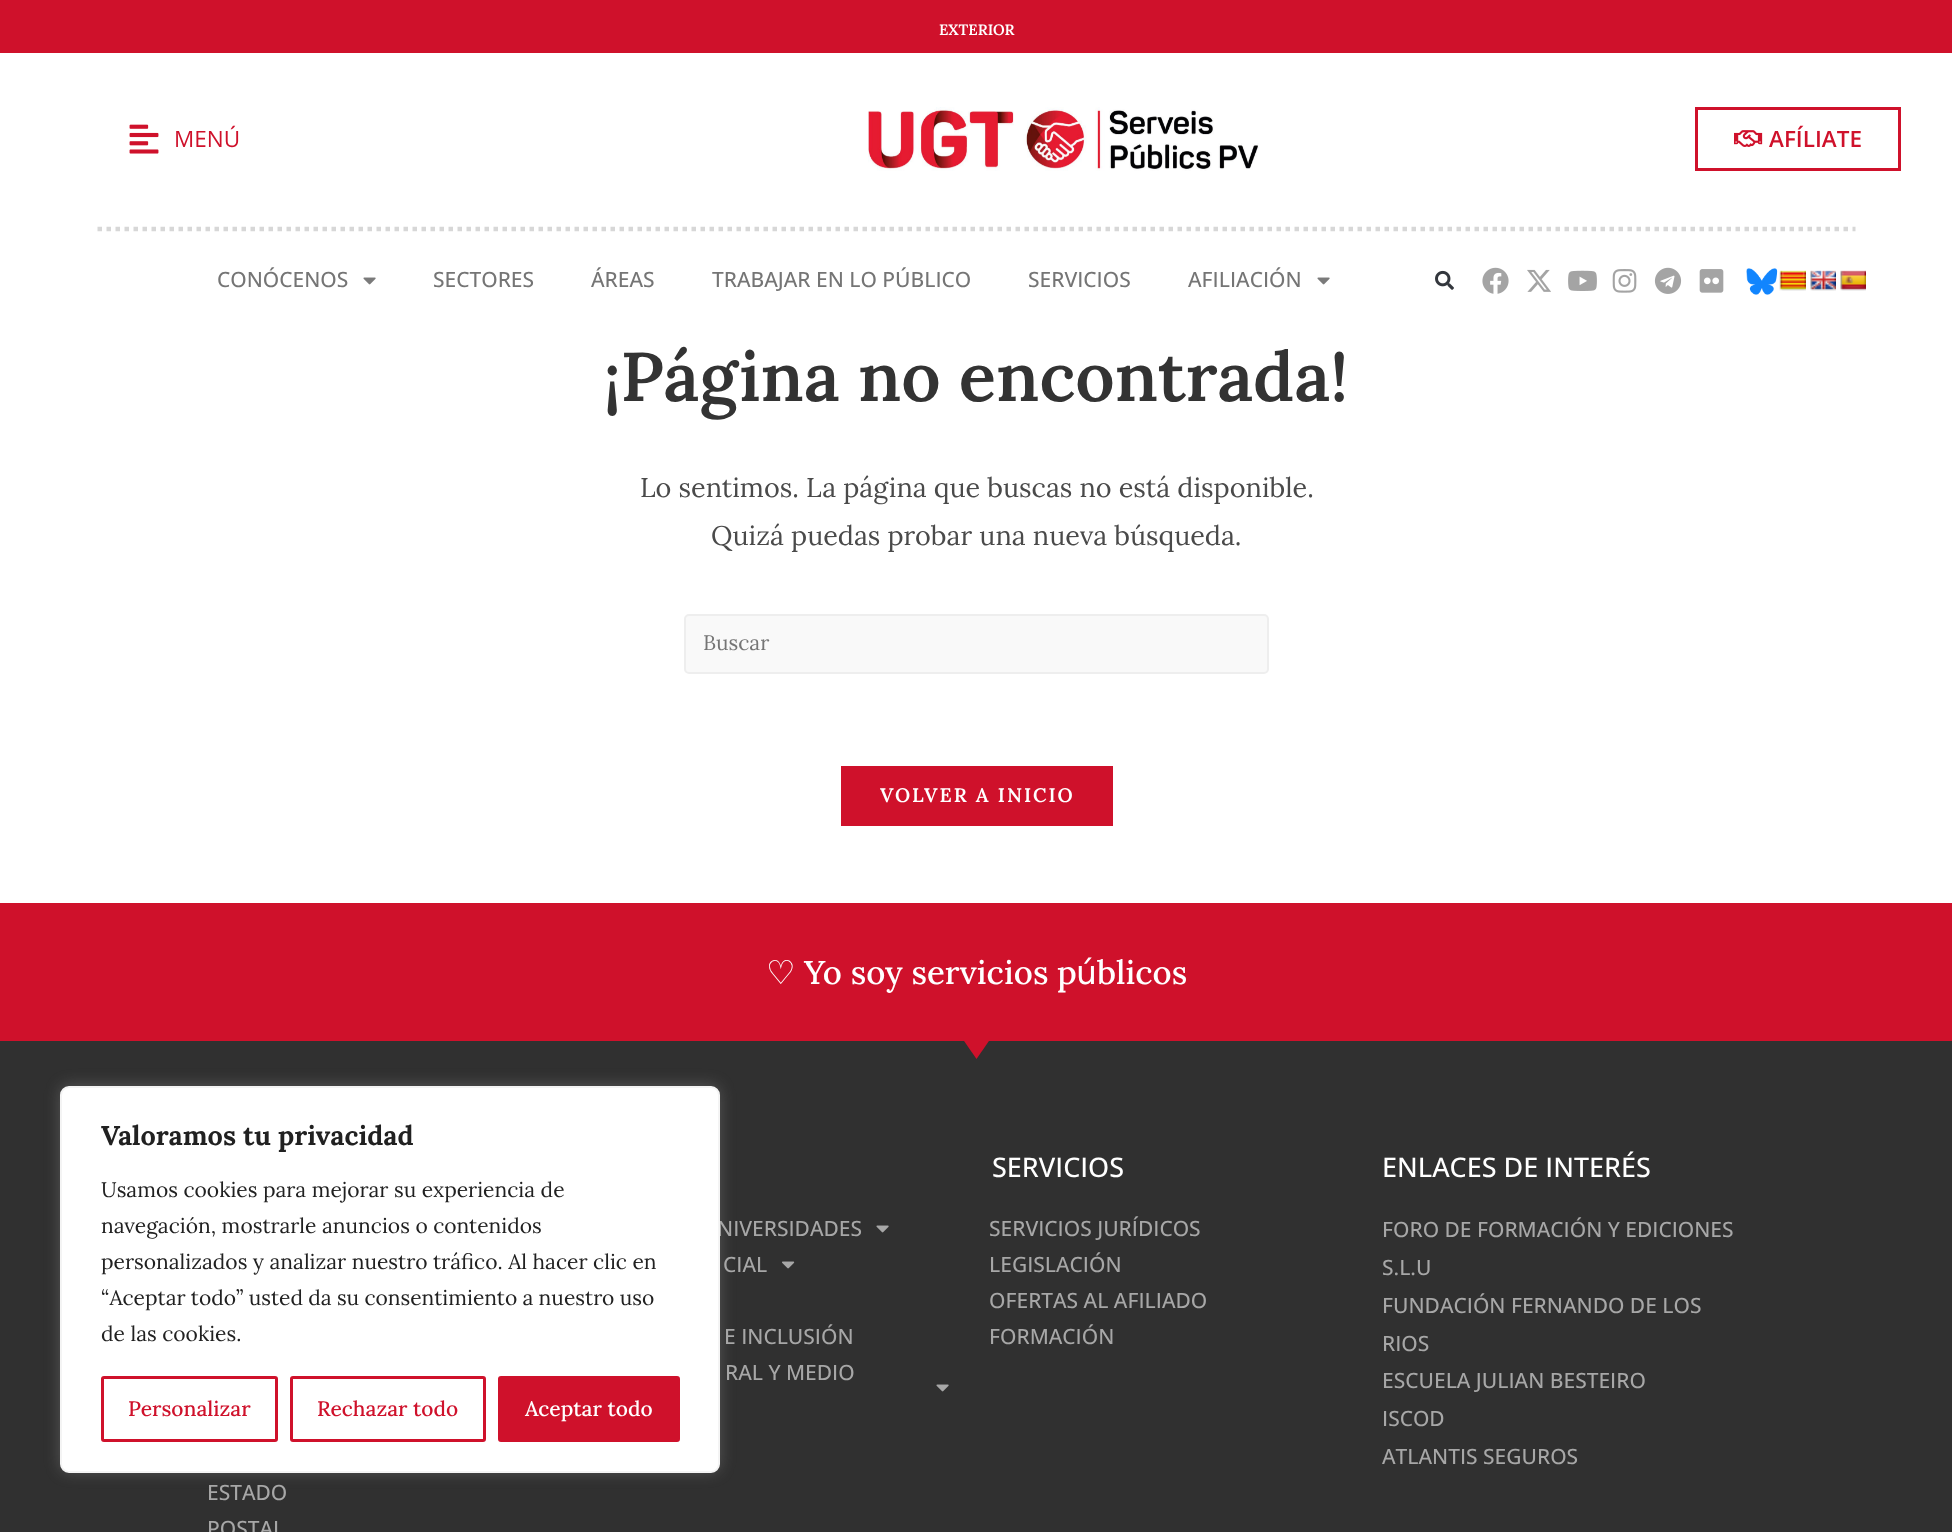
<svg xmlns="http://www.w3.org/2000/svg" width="1952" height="1532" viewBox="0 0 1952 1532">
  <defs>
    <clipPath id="clip1"><rect x="507" y="1040" width="939" height="19"/></clipPath>
  </defs>
  <rect width="100%" height="100%" fill="rgb(255,255,255)"/>
  <rect x="0" y="0" width="1952" height="53" fill="rgb(207,17,43)"/>
  <text x="939" y="35" font-family="Lora" font-size="15" font-weight="600" fill="rgb(255,255,255)">EXTERIOR</text>
  <image x="129" y="124" width="30" height="30" href="pic1.png"/>
  <text x="174" y="147" font-family="Open Sans" font-size="22.5" fill="rgb(207,17,43)">MENÚ</text>
  <image x="868" y="107" width="391" height="64" href="pic2.png"/>
  <rect x="1696.5" y="108.5" width="203" height="61" fill="none" stroke="rgb(207,17,43)" stroke-width="3"/>
  <image x="1734" y="130" width="29" height="17" href="pic3.png"/>
  <text x="1769" y="147" font-family="Open Sans" font-size="22.5" font-weight="600" fill="rgb(207,17,43)">AFÍLIATE</text>
  <path d="M97.5 229H1855.5" fill="none" stroke="rgb(215,215,215)" stroke-width="4.5" stroke-dasharray="4.5 4.5"/>
  <text x="217" y="287" font-family="Open Sans" font-size="21" font-weight="500" fill="rgb(117,117,117)">CONÓCENOS</text>
  <image x="363" y="277" width="13" height="8" href="pic4.png"/>
  <g font-family="Open Sans" font-size="21" font-weight="500" fill="rgb(117,117,117)">
    <text x="433" y="287">SECTORES</text>
    <text x="591" y="287">ÁREAS</text>
    <text x="712" y="287">TRABAJAR EN LO PÚBLICO</text>
    <text x="1028" y="287">SERVICIOS</text>
    <text x="1188" y="287">AFILIACIÓN</text>
  </g>
  <image x="1317" y="277" width="13" height="8" href="pic4.png"/>
  <image x="1435" y="270" width="19" height="20" href="pic5.png"/>
  <image x="1482" y="267" width="27" height="27" href="pic6.png"/>
  <image x="1527" y="269" width="24" height="23" href="pic7.png"/>
  <image x="1568" y="270" width="29" height="21" href="pic8.png"/>
  <image x="1612" y="269" width="25" height="24" href="pic9.png"/>
  <image x="1654" y="267" width="28" height="27" href="pic10.png"/>
  <image x="1699" y="269" width="25" height="24" href="pic11.png"/>
  <image x="1746" y="268" width="32" height="27" href="pic12.png"/>
  <image x="1779" y="270" width="27" height="21" href="pic13.png"/>
  <image x="1810" y="270" width="26" height="21" href="pic14.png"/>
  <image x="1840" y="270" width="26" height="21" href="pic15.png"/>
  <text x="604" y="401" font-family="Lora" font-size="69" font-weight="600" fill="rgb(51,51,51)">¡Página no encontrada!</text>
  <g font-family="Lora" font-size="27" fill="rgb(74,74,74)">
    <text x="640" y="497">Lo sentimos. La página que buscas no está disponible.</text>
    <text x="711" y="545">Quizá puedas probar una nueva búsqueda.</text>
  </g>
  <rect x="685" y="615" width="583" height="58" rx="4" fill="rgb(249,249,249)" stroke="rgb(238,238,238)" stroke-width="2"/>
  <text x="703" y="650" font-family="Lora" font-size="21" fill="rgb(117,117,117)">Buscar</text>
  <rect x="841" y="766" width="272" height="60" fill="rgb(207,17,43)"/>
  <text x="880" y="802" font-family="Lora" font-size="19.5" font-weight="600" letter-spacing="2" fill="rgb(255,255,255)">VOLVER A INICIO</text>
  <rect x="0" y="903" width="1952" height="138" fill="rgb(207,17,43)"/>
  <text x="766" y="984" font-family="DejaVu Sans" font-size="33" fill="rgb(255,255,255)">♡</text>
  <text x="804" y="984" font-family="Lora" font-size="33" font-weight="500" fill="rgb(255,255,255)">Yo soy servicios p</text>
  <text x="1076" y="984" font-family="DejaVu Sans" font-size="33" fill="rgb(255,255,255)">ú</text>
  <text x="1097" y="984" font-family="Lora" font-size="33" font-weight="500" fill="rgb(255,255,255)">blicos</text>
  <rect x="0" y="1041" width="1952" height="491" fill="rgb(48,48,48)"/>
  <g clip-path="url(#clip1)">
    <path d="M976.5 1059L963 1039.5H990Z" fill="rgb(207,17,43)"/>
  </g>
  <text x="717" y="1236" font-family="Open Sans" font-size="21" font-weight="500" fill="rgb(167,167,167)">NIVERSIDADES</text>
  <image x="876" y="1225" width="13" height="8" href="pic16.png"/>
  <text x="723" y="1272" font-family="Open Sans" font-size="21" font-weight="500" fill="rgb(167,167,167)">CIAL</text>
  <image x="782" y="1261" width="13" height="8" href="pic17.png"/>
  <g font-family="Open Sans" font-size="21" font-weight="500" fill="rgb(167,167,167)">
    <text x="724" y="1344">E INCLUSIÓN</text>
    <text x="725" y="1380">RAL Y MEDIO</text>
  </g>
  <image x="936" y="1384" width="13" height="8" href="pic16.png"/>
  <text x="992" y="1177" font-family="Open Sans" font-size="27" font-weight="500" fill="rgb(255,255,255)">SERVICIOS</text>
  <g font-family="Open Sans" font-size="21" font-weight="500" fill="rgb(167,167,167)">
    <text>
      <tspan x="989" y="1236">SERVICIOS JURÍDICOS</tspan>
      <tspan x="989" y="1272">LEGISLACIÓN</tspan>
      <tspan x="989" y="1308">OFERTAS AL AFILIADO</tspan>
      <tspan x="989" y="1344">FORMACIÓN</tspan>
    </text>
  </g>
  <text x="1382" y="1177" font-family="Open Sans" font-size="27" font-weight="500" fill="rgb(255,255,255)">ENLACES DE INTERÉS</text>
  <g font-family="Open Sans" font-size="21" font-weight="500" fill="rgb(167,167,167)">
    <text>
      <tspan x="1382" y="1237">FORO DE FORMACIÓN Y EDICIONES</tspan>
      <tspan x="1382" y="1275">S.L.U</tspan>
      <tspan x="1382" y="1313">FUNDACIÓN FERNANDO DE LOS</tspan>
      <tspan x="1382" y="1351">RIOS</tspan>
      <tspan x="1382" y="1388">ESCUELA JULIAN BESTEIRO</tspan>
      <tspan x="1382" y="1426">ISCOD</tspan>
      <tspan x="1382" y="1464">ATLANTIS SEGUROS</tspan>
    </text>
    <text>
      <tspan x="207" y="1500">ESTADO</tspan>
      <tspan x="207" y="1536">POSTAL</tspan>
    </text>
  </g>
  <rect x="60" y="1085" width="660" height="387" rx="9" fill="rgba(172,171,171,0.3)" filter="blur(7.5px)"/>
  <rect x="61" y="1087" width="658" height="385" rx="8" fill="rgb(255,255,255)" stroke="rgb(244,244,244)" stroke-width="2"/>
  <text x="101" y="1145" font-family="Lora" font-size="27" font-weight="bold" fill="rgb(33,33,33)">Valoramos tu privacidad</text>
  <g font-family="Lora" font-size="21" fill="rgb(33,33,33)">
    <text>
      <tspan x="101" y="1197">Usamos cookies para mejorar su experiencia de</tspan>
      <tspan x="101" y="1233">navegación, mostrarle anuncios o contenidos</tspan>
      <tspan x="101" y="1269">personalizados y analizar nuestro tráfico. Al hacer clic en</tspan>
      <tspan x="101" y="1305" word-spacing="-0.25">“Aceptar todo” usted da su consentimiento a nuestro uso</tspan>
      <tspan x="101" y="1341">de las cookies.</tspan>
    </text>
  </g>
  <rect x="102.5" y="1377.5" width="174" height="63" rx="1.5" fill="none" stroke="rgb(207,17,43)" stroke-width="3"/>
  <text x="128" y="1416" font-family="Lora" font-size="21" font-weight="500" fill="rgb(207,17,43)">Personalizar</text>
  <rect x="291.5" y="1377.5" width="193" height="63" rx="1.5" fill="none" stroke="rgb(207,17,43)" stroke-width="3"/>
  <text x="317" y="1416" font-family="Lora" font-size="21" font-weight="500" fill="rgb(207,17,43)">Rechazar todo</text>
  <rect x="499.5" y="1377.5" width="179" height="63" rx="1.5" fill="rgb(207,17,43)" stroke="rgb(207,17,43)" stroke-width="3"/>
  <text x="525" y="1416" font-family="Lora" font-size="21" font-weight="500" fill="rgb(255,255,255)">Aceptar todo</text>
</svg>
